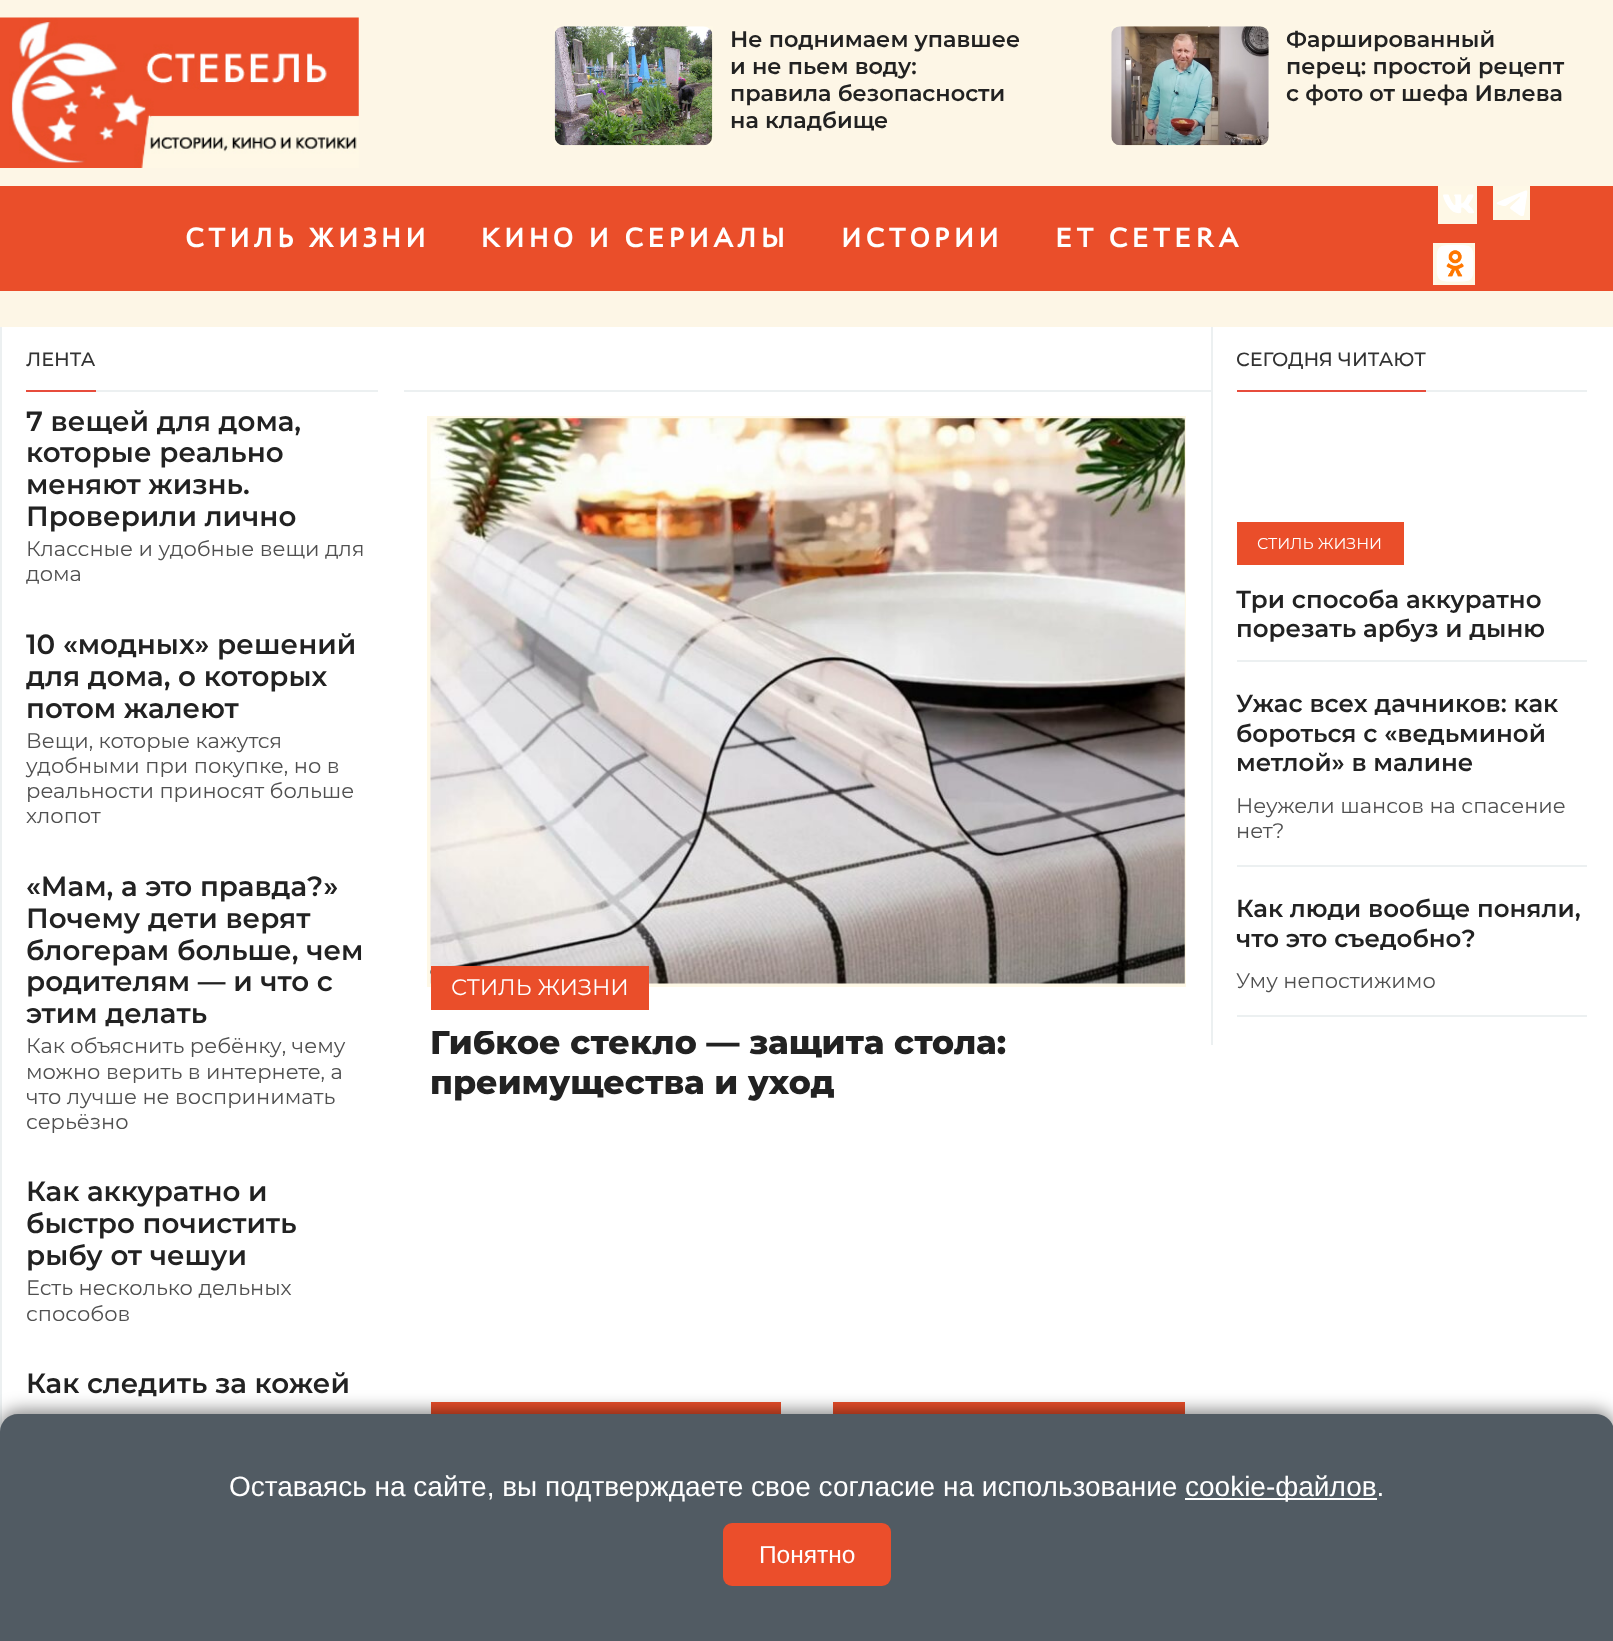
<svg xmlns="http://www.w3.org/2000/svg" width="1613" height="1641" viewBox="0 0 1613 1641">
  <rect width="100%" height="100%" fill="rgb(255,255,255)"/>
  <rect x="0" y="0" width="1613" height="327" fill="rgb(253,246,230)"/>
  <image x="0" y="17" width="359" height="151" href="pic1.png"/>
  <image x="554" y="26" width="159" height="120" href="pic2.png"/>
  <g font-family="Montserrat" font-size="22.4" font-weight="600" fill="rgb(34,34,34)">
    <text>
      <tspan x="730" y="47">Не поднимаем упавшее</tspan>
      <tspan x="730" y="74">и не пьем воду:</tspan>
      <tspan x="730" y="101">правила безопасности</tspan>
      <tspan x="730" y="128">на кладбище</tspan>
    </text>
  </g>
  <image x="1111" y="26" width="158" height="120" href="pic3.png"/>
  <g font-family="Montserrat" font-size="22.4" font-weight="600" fill="rgb(34,34,34)">
    <text>
      <tspan x="1286" y="47">Фаршированный</tspan>
      <tspan x="1286" y="74">перец: простой рецепт</tspan>
      <tspan x="1286" y="101">с фото от шефа Ивлева</tspan>
    </text>
  </g>
  <rect x="0" y="186" width="1613" height="105" fill="rgb(234,78,42)"/>
  <g font-family="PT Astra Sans" font-size="28" font-weight="bold" letter-spacing="4.25" fill="rgb(255,255,255)">
    <text x="185" y="247">СТИЛЬ ЖИЗНИ</text>
    <text x="481" y="247">КИНО И СЕРИАЛЫ</text>
    <text x="841" y="247">ИСТОРИИ</text>
    <text x="1055" y="247">ET CETERA</text>
  </g>
  <image x="1438" y="186" width="39" height="38" href="pic4.png"/>
  <image x="1493" y="186" width="37" height="34" href="pic5.png"/>
  <image x="1433" y="243" width="42" height="42" href="pic6.png"/>
  <rect x="0" y="327" width="2" height="1105" fill="rgb(236,240,241)"/>
  <rect x="96" y="390" width="282" height="2" fill="rgb(236,240,241)"/>
  <rect x="26" y="390" width="70" height="2" fill="rgb(231,76,60)"/>
  <text x="26" y="366" font-family="Montserrat" font-size="19.25" font-weight="500" fill="rgb(51,51,51)">ЛЕНТА</text>
  <g font-family="Montserrat" font-size="27.75" font-weight="600" fill="rgb(34,34,34)">
    <text>
      <tspan x="26" y="431">7 вещей для дома,</tspan>
      <tspan x="26" y="462">которые реально</tspan>
      <tspan x="26" y="494">меняют жизнь.</tspan>
      <tspan x="26" y="526">Проверили лично</tspan>
    </text>
  </g>
  <g font-family="Montserrat" font-size="21" fill="rgb(80,80,80)">
    <text>
      <tspan x="26" y="556">Классные и удобные вещи для</tspan>
      <tspan x="26" y="581">дома</tspan>
    </text>
  </g>
  <g font-family="Montserrat" font-size="27.75" font-weight="600" fill="rgb(34,34,34)">
    <text>
      <tspan x="26" y="654">10 «модных» решений</tspan>
      <tspan x="26" y="686">для дома, о которых</tspan>
      <tspan x="26" y="718">потом жалеют</tspan>
    </text>
  </g>
  <g font-family="Montserrat" font-size="21" fill="rgb(80,80,80)">
    <text>
      <tspan x="26" y="748">Вещи, которые кажутся</tspan>
      <tspan x="26" y="773">удобными при покупке, но в</tspan>
      <tspan x="26" y="798">реальности приносят больше</tspan>
      <tspan x="26" y="823">хлопот</tspan>
    </text>
  </g>
  <g font-family="Montserrat" font-size="27.75" font-weight="600" fill="rgb(34,34,34)">
    <text>
      <tspan x="26" y="896">«Мам, а это правда?»</tspan>
      <tspan x="26" y="928">Почему дети верят</tspan>
      <tspan x="26" y="960">блогерам больше, чем</tspan>
      <tspan x="26" y="991">родителям — и что с</tspan>
      <tspan x="26" y="1023">этим делать</tspan>
    </text>
  </g>
  <g font-family="Montserrat" font-size="21" fill="rgb(80,80,80)">
    <text>
      <tspan x="26" y="1053">Как объяснить ребёнку, чему</tspan>
      <tspan x="26" y="1079">можно верить в интернете, а</tspan>
      <tspan x="26" y="1104">что лучше не воспринимать</tspan>
      <tspan x="26" y="1129">серьёзно</tspan>
    </text>
  </g>
  <g font-family="Montserrat" font-size="27.75" font-weight="600" fill="rgb(34,34,34)">
    <text>
      <tspan x="26" y="1201">Как аккуратно и</tspan>
      <tspan x="26" y="1233">быстро почистить</tspan>
      <tspan x="26" y="1265">рыбу от чешуи</tspan>
    </text>
  </g>
  <g font-family="Montserrat" font-size="21" fill="rgb(80,80,80)">
    <text>
      <tspan x="26" y="1295">Есть несколько дельных</tspan>
      <tspan x="26" y="1321">способов</tspan>
    </text>
  </g>
  <text x="26" y="1393" font-family="Montserrat" font-size="27.75" font-weight="600" fill="rgb(34,34,34)">Как следить за кожей</text>
  <rect x="1211" y="327" width="2" height="718" fill="rgb(236,240,241)"/>
  <rect x="1426" y="390" width="161" height="2" fill="rgb(236,240,241)"/>
  <rect x="1237" y="390" width="189" height="2" fill="rgb(231,76,60)"/>
  <text x="1236" y="366" font-family="Montserrat" font-size="19.25" font-weight="500" fill="rgb(51,51,51)">СЕГОДНЯ ЧИТАЮТ</text>
  <rect x="1237" y="660" width="350" height="2" fill="rgb(236,240,241)"/>
  <rect x="1237" y="522" width="167" height="43" fill="rgb(234,78,42)"/>
  <text x="1257" y="549" font-family="Montserrat" font-size="15.75" fill="rgb(255,255,255)">СТИЛЬ ЖИЗНИ</text>
  <g font-family="Montserrat" font-size="24.5" font-weight="600" fill="rgb(34,34,34)">
    <text>
      <tspan x="1236" y="608">Три способа аккуратно</tspan>
      <tspan x="1236" y="637">порезать арбуз и дыню</tspan>
    </text>
  </g>
  <rect x="1237" y="865" width="350" height="2" fill="rgb(236,240,241)"/>
  <g font-family="Montserrat" font-size="24.5" font-weight="600" fill="rgb(34,34,34)">
    <text>
      <tspan x="1236" y="712">Ужас всех дачников: как</tspan>
      <tspan x="1236" y="742">бороться с «ведьминой</tspan>
      <tspan x="1236" y="771">метлой» в малине</tspan>
    </text>
  </g>
  <g font-family="Montserrat" font-size="21" fill="rgb(80,80,80)">
    <text>
      <tspan x="1236" y="813">Неужели шансов на спасение</tspan>
      <tspan x="1236" y="838">нет?</tspan>
    </text>
  </g>
  <rect x="1237" y="1015" width="350" height="2" fill="rgb(236,240,241)"/>
  <g font-family="Montserrat" font-size="24.5" font-weight="600" fill="rgb(34,34,34)">
    <text>
      <tspan x="1236" y="917">Как люди вообще поняли,</tspan>
      <tspan x="1236" y="947">что это съедобно?</tspan>
    </text>
  </g>
  <text x="1236" y="988" font-family="Montserrat" font-size="21" fill="rgb(80,80,80)">Уму непостижимо</text>
  <rect x="404" y="390" width="807" height="2" fill="rgb(236,240,241)"/>
  <image x="427" y="416" width="759" height="571" href="pic7.png"/>
  <text x="430" y="1054" font-family="Montserrat" font-size="33.25" font-weight="800" fill="rgb(34,34,34)">Гибкое стекло — защита стола:</text>
  <rect x="432" y="1028" width="61" height="3" fill="rgb(255,255,255)"/>
  <rect x="431" y="966" width="218" height="44" fill="rgb(234,78,42)"/>
  <text x="451" y="995" font-family="Montserrat" font-size="22.4" fill="rgb(255,255,255)">СТИЛЬ ЖИЗНИ</text>
  <text x="430" y="1094" font-family="Montserrat" font-size="33.25" font-weight="800" fill="rgb(34,34,34)">преимущества и уход</text>
  <rect x="431" y="1402" width="350" height="12" fill="rgb(234,78,42)"/>
  <rect x="833" y="1402" width="352" height="12" fill="rgb(234,78,42)"/>
  <rect x="0" y="1411" width="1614" height="227" rx="18" fill="rgba(0,0,0,0.5)" filter="blur(9px)"/>
  <path d="M18 1414H1596C1606 1414 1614 1422 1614 1432V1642H0V1432C0 1422 8 1414 18 1414Z" fill="rgb(81,91,99)"/>
  <text x="229" y="1496" font-family="Liberation Sans" font-size="28" fill="rgb(255,255,255)">Оставаясь на сайте, вы подтверждаете свое согласие на использование</text>
  <rect x="1185" y="1498" width="192" height="2" fill="rgb(255,255,255)"/>
  <text x="1185" y="1496" font-family="Liberation Sans" font-size="28" fill="rgb(255,255,255)">cookie-файлов.</text>
  <rect x="723" y="1523" width="168" height="63" rx="9" fill="rgb(235,78,43)"/>
  <text x="759" y="1563" font-family="Liberation Sans" font-size="24.5" fill="rgb(255,255,255)">Понятно</text>
</svg>
